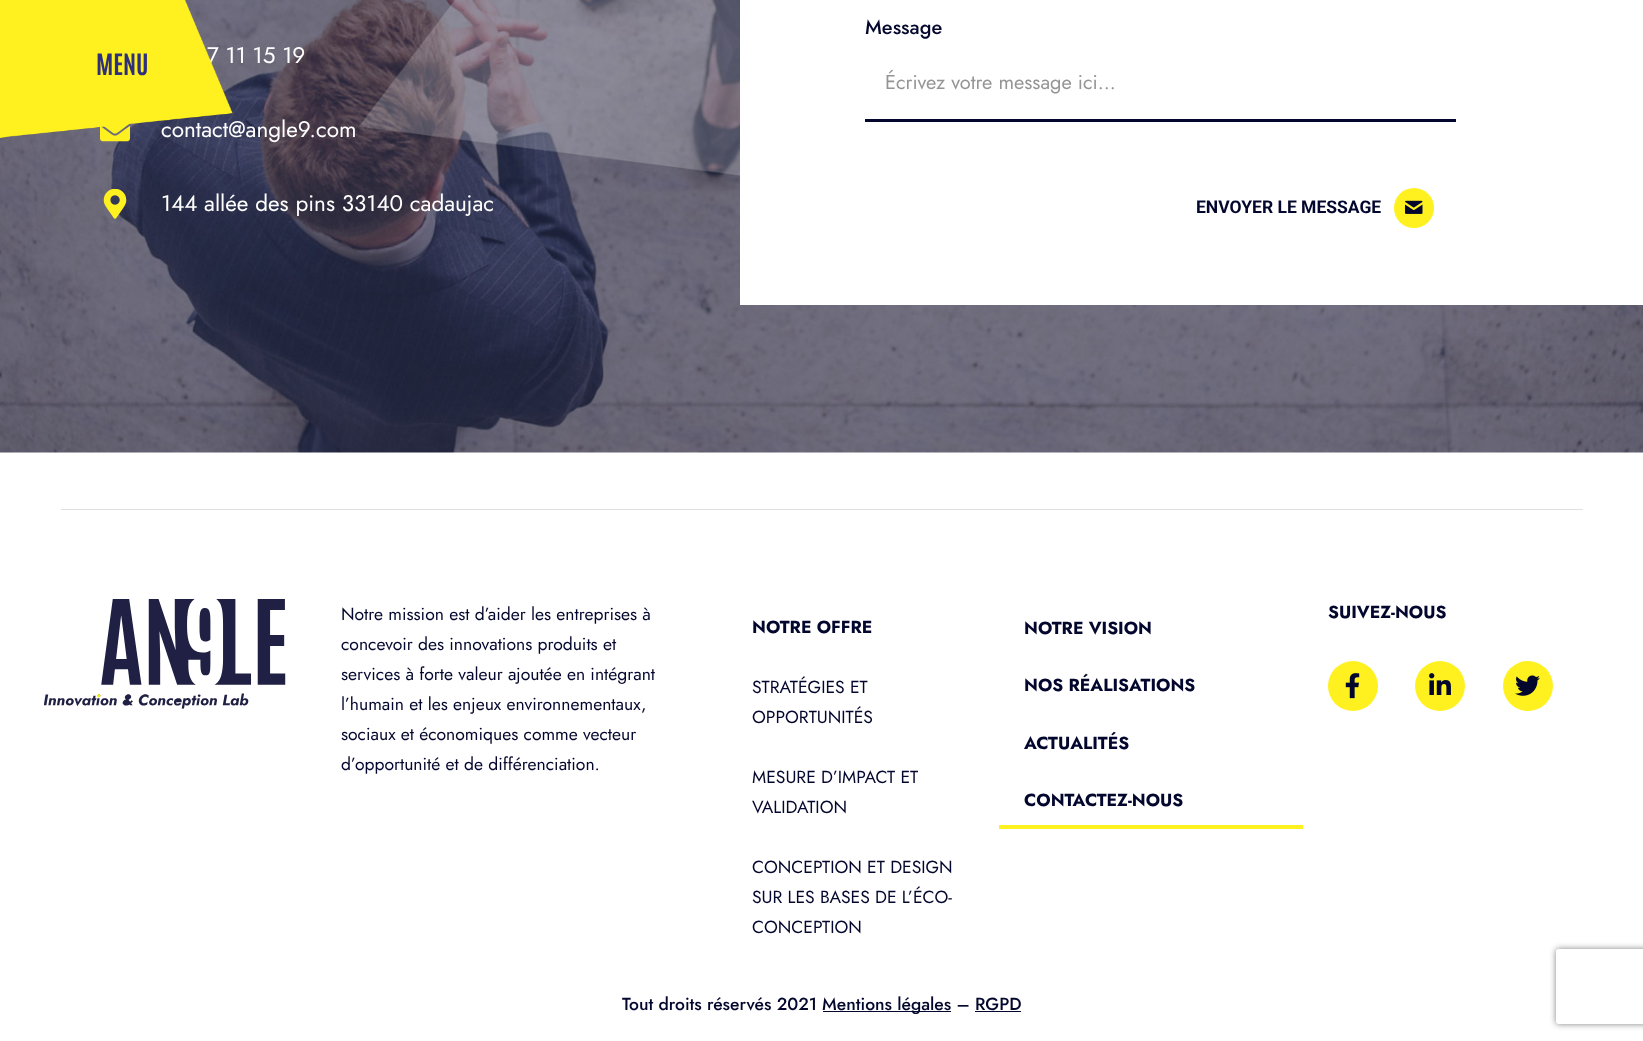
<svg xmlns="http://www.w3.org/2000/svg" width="1643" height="1041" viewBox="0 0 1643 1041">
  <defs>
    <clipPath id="clip1"><path d="M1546 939H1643V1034H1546ZM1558.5 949H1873.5C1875 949 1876 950 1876 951.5V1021.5C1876 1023 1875 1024 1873.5 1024H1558.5C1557 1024 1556 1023 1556 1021.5V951.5C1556 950 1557 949 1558.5 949Z" clip-rule="evenodd"/></clipPath>
  </defs>
  <rect width="100%" height="100%" fill="rgb(255,255,255)"/>
  <image x="0" y="0" width="1643" height="453" href="pic2.png"/>
  <text x="207" y="63" font-family="Jost" font-size="22.5" fill="rgb(255,255,255)">7 11 15 19</text>
  <image x="100" y="123" width="30" height="19" href="pic3.png"/>
  <text x="161" y="137" font-family="Jost" font-size="22.5" fill="rgb(255,255,255)">contact@angle9.com</text>
  <image x="0" y="0" width="233" height="138" href="pic1.png"/>
  <text x="96" y="75" font-family="Antonio" font-size="25" font-weight="bold" fill="rgb(47,48,124)">MENU</text>
  <image x="103" y="189" width="24" height="30" href="pic4.png"/>
  <text x="161" y="211" font-family="Jost" font-size="22.5" fill="rgb(255,255,255)">144 allée des pins 33140 cadaujac</text>
  <rect x="740" y="0" width="903" height="305" fill="rgb(255,255,255)"/>
  <text x="865" y="34" font-family="Jost" font-size="20" font-weight="500" fill="rgb(4,7,45)">Message</text>
  <rect x="865" y="119" width="591" height="3" fill="rgb(4,7,45)"/>
  <text x="885" y="89" font-family="Jost" font-size="20" fill="rgb(149,149,149)">Écrivez votre message ici...</text>
  <text x="1196" y="213" font-family="Roboto" font-size="17.5" font-weight="bold" fill="rgb(4,7,45)">ENVOYER LE MESSAGE</text>
  <circle cx="1414" cy="208" r="20" fill="rgb(255,241,32)"/>
  <image x="1405" y="200" width="18" height="14" href="pic5.png"/>
  <g clip-path="url(#clip1)">
    <rect x="1556" y="949" width="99" height="75" rx="2.5" fill="rgb(128,128,128)" filter="blur(3px)"/>
  </g>
  <rect x="61" y="509" width="1522" height="1" fill="rgb(224,224,224)"/>
  <image x="44" y="599" width="242" height="110" href="pic6.png"/>
  <g font-family="Jost" font-size="17.5" fill="rgb(4,7,45)">
    <text>
      <tspan x="341" y="620">Notre mission est d’aider les entreprises à</tspan>
      <tspan x="341" y="650">concevoir des innovations produits et</tspan>
      <tspan x="341" y="680">services à forte valeur ajoutée en intégrant</tspan>
      <tspan x="341" y="710">l’humain et les enjeux environnementaux,</tspan>
      <tspan x="341" y="740">sociaux et économiques comme vecteur</tspan>
      <tspan x="341" y="770">d’opportunité et de différenciation.</tspan>
    </text>
  </g>
  <text x="752" y="633" font-family="Jost" font-size="17.5" font-weight="bold" fill="rgb(4,7,45)">NOTRE OFFRE</text>
  <g font-family="Jost" font-size="17.5" fill="rgb(4,7,45)">
    <text>
      <tspan x="752" y="693">STRATÉGIES ET</tspan>
      <tspan x="752" y="723">OPPORTUNITÉS</tspan>
    </text>
    <text>
      <tspan x="752" y="783">MESURE D’IMPACT ET</tspan>
      <tspan x="752" y="813">VALIDATION</tspan>
    </text>
    <text>
      <tspan x="752" y="873">CONCEPTION ET DESIGN</tspan>
      <tspan x="752" y="903">SUR LES BASES DE L’ÉCO-</tspan>
      <tspan x="752" y="933">CONCEPTION</tspan>
    </text>
  </g>
  <g font-family="Jost" font-size="17.5" font-weight="bold" fill="rgb(4,7,45)">
    <text x="1024" y="634">NOTRE VISION</text>
    <text x="1024" y="691">NOS RÉALISATIONS</text>
    <text x="1024" y="749">ACTUALITÉS</text>
    <text x="1024" y="806">CONTACTEZ-NOUS</text>
  </g>
  <rect x="999" y="825" width="304" height="4" fill="rgb(255,241,32)"/>
  <text x="1328" y="618" font-family="Jost" font-size="17.5" font-weight="bold" fill="rgb(4,7,45)">SUIVEZ-NOUS</text>
  <circle cx="1353" cy="686" r="25" fill="rgb(255,241,32)"/>
  <image x="1345" y="673" width="15" height="26" href="pic7.png"/>
  <circle cx="1440" cy="686" r="25" fill="rgb(255,241,32)"/>
  <image x="1429" y="673" width="22" height="22" href="pic8.png"/>
  <circle cx="1528" cy="686" r="25" fill="rgb(255,241,32)"/>
  <image x="1515" y="675" width="25" height="21" href="pic9.png"/>
  <text x="622" y="1010" font-family="Jost" font-size="17.5" font-weight="500" fill="rgb(4,7,45)">Tout droits réservés 2021</text>
  <rect x="823" y="1011" width="128" height="1" fill="rgb(4,7,45)"/>
  <text x="822" y="1010" font-family="Jost" font-size="17.5" font-weight="500" fill="rgb(4,7,45)">Mentions légales – RGPD</text>
  <rect x="975" y="1011" width="46" height="1" fill="rgb(4,7,45)"/>
</svg>
